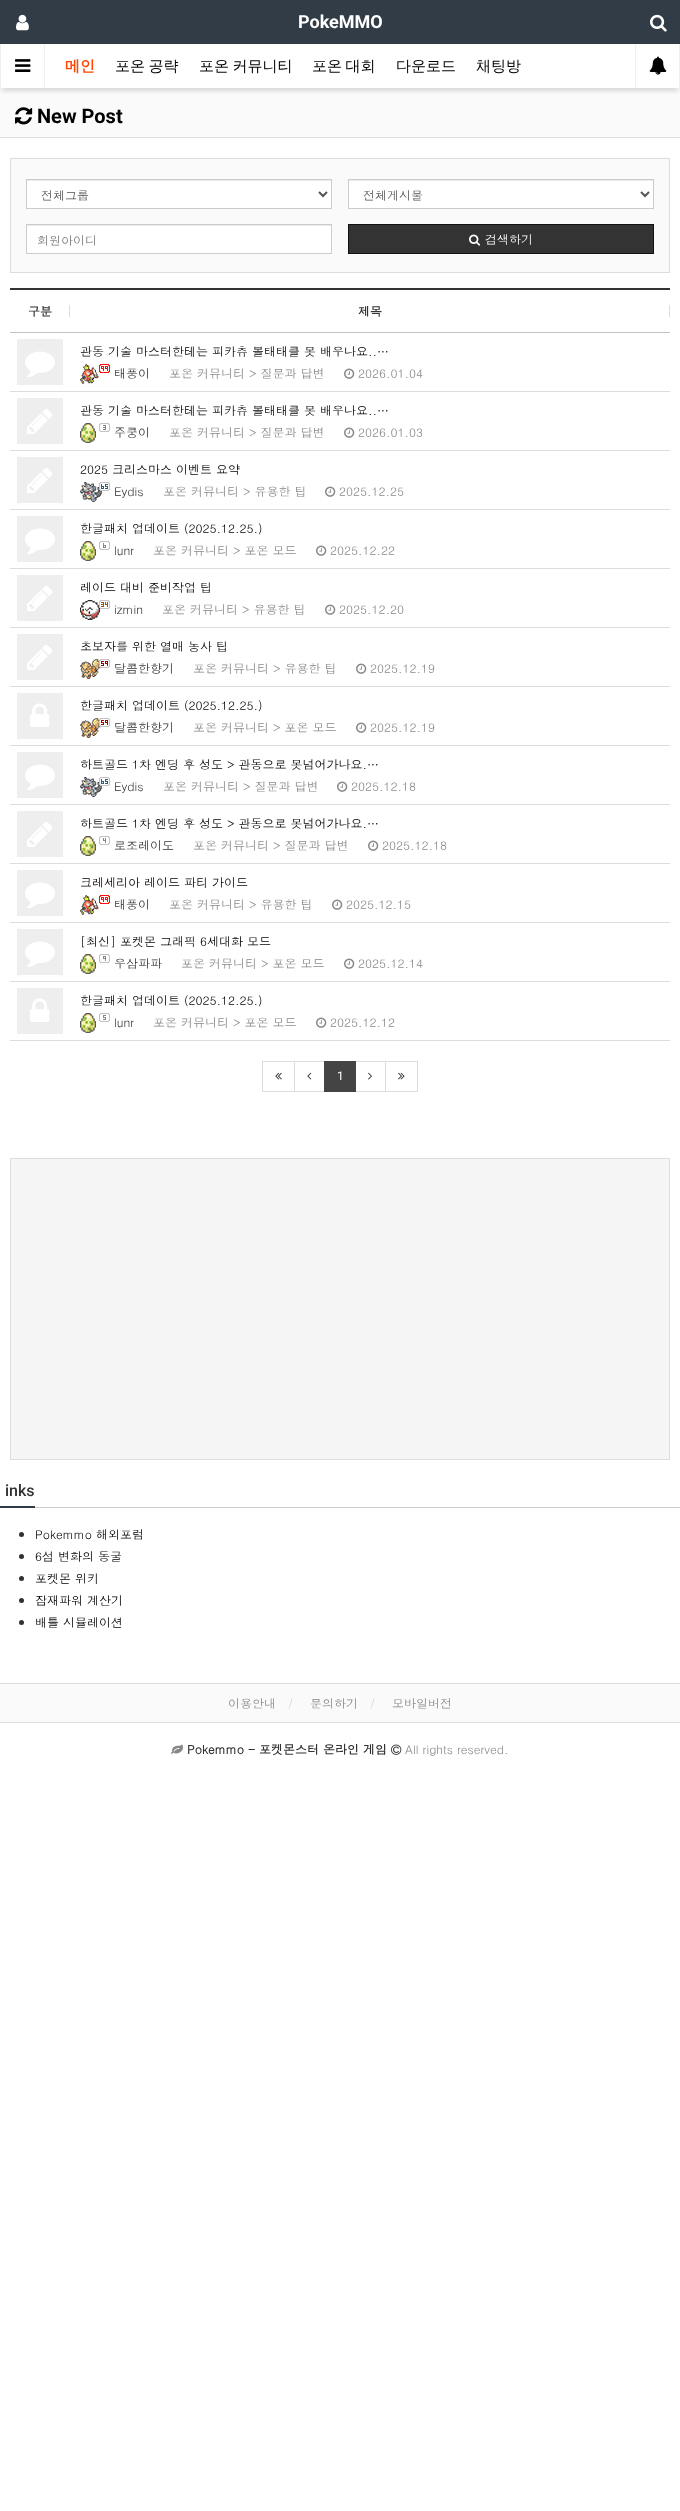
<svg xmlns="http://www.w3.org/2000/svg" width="680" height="2511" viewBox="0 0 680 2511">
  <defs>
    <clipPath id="clip1"><rect x="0" y="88" width="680" height="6"/></clipPath>
  </defs>
  <rect width="100%" height="100%" fill="rgb(255,255,255)"/>
  <rect x="0" y="0" width="680" height="44" fill="rgb(50,60,70)"/>
  <image x="16" y="14" width="13" height="17" href="pic1.png"/>
  <text x="298" y="28" font-family="Roboto" font-size="18" font-weight="bold" fill="rgb(255,255,255)">PokeMMO</text>
  <image x="650" y="14" width="17" height="18" href="pic2.png"/>
  <rect x="0" y="88" width="680" height="49" fill="rgb(250,250,250)"/>
  <g clip-path="url(#clip1)">
    <rect x="2" y="51" width="676" height="40" fill="rgba(25,25,25,0.15)" filter="blur(2.5px)"/>
  </g>
  <rect x="0" y="44" width="1" height="44" fill="rgb(238,238,238)"/>
  <image x="15" y="59" width="16" height="13" href="pic3.png"/>
  <rect x="44" y="44" width="1" height="44" fill="rgb(238,238,238)"/>
  <text x="65" y="71" font-family="WenQuanYi Zen Hei" font-size="15" font-weight="bold" fill="rgb(255,69,0)">메인</text>
  <g font-family="WenQuanYi Zen Hei" font-size="15" font-weight="500" fill="rgb(0,0,0)">
    <text x="115" y="71" word-spacing="-1">포온 공략</text>
    <text x="199" y="71" word-spacing="-1">포온 커뮤니티</text>
    <text x="312" y="71" word-spacing="-1">포온 대회</text>
    <text x="396" y="71">다운로드</text>
    <text x="476" y="71">채팅방</text>
  </g>
  <rect x="679" y="44" width="1" height="44" fill="rgb(238,238,238)"/>
  <rect x="635" y="44" width="1" height="44" fill="rgb(238,238,238)"/>
  <image x="649" y="56" width="18" height="19" href="pic4.png"/>
  <rect x="0" y="137" width="680" height="1" fill="rgb(223,223,223)"/>
  <image x="15" y="107" width="18" height="18" href="pic5.png"/>
  <text x="37" y="123" font-family="Roboto" font-size="20" font-weight="bold" fill="rgb(0,0,0)">New Post</text>
  <rect x="10.5" y="158.5" width="659" height="114" fill="rgb(250,250,250)" stroke="rgb(221,221,221)"/>
  <rect x="27" y="181" width="304" height="27" fill="rgb(255,255,255)"/>
  <rect x="27" y="180" width="304" height="1" fill="rgb(236,236,236)"/>
  <rect x="26.5" y="179.5" width="305" height="29" fill="none" stroke="rgb(204,204,204)"/>
  <path d="M319 192L323 196L327 192" fill="none" stroke="rgb(85,85,85)" stroke-width="2"/>
  <text x="41" y="200" font-family="Dotum" font-size="12" fill="rgb(85,85,85)">전체그룹</text>
  <rect x="349" y="181" width="304" height="27" fill="rgb(255,255,255)"/>
  <rect x="349" y="180" width="304" height="1" fill="rgb(236,236,236)"/>
  <rect x="348.5" y="179.5" width="305" height="29" fill="none" stroke="rgb(204,204,204)"/>
  <path d="M641 192L645 196L649 192" fill="none" stroke="rgb(85,85,85)" stroke-width="2"/>
  <text x="363" y="200" font-family="Dotum" font-size="12" fill="rgb(85,85,85)">전체게시물</text>
  <rect x="27" y="226" width="304" height="27" fill="rgb(255,255,255)"/>
  <rect x="27" y="225" width="304" height="1" fill="rgb(236,236,236)"/>
  <rect x="26.5" y="224.5" width="305" height="29" fill="none" stroke="rgb(204,204,204)"/>
  <text x="37" y="245" font-family="Dotum" font-size="12" fill="rgb(119,119,119)">회원아이디</text>
  <rect x="348.5" y="224.5" width="305" height="29" fill="rgb(51,51,51)" stroke="rgb(17,17,17)"/>
  <image x="469" y="234" width="12" height="12" href="pic6.png"/>
  <text x="485" y="244" font-family="Dotum" font-size="12" fill="rgb(255,255,255)">검색하기</text>
  <rect x="10" y="288" width="660" height="2" fill="rgb(51,51,51)"/>
  <rect x="10" y="332" width="660" height="1" fill="rgb(195,195,195)"/>
  <rect x="69" y="305" width="1" height="12" fill="rgb(221,221,221)"/>
  <text x="28" y="316" font-family="Dotum" font-size="12" font-weight="bold" fill="rgb(51,51,51)">구분</text>
  <rect x="669" y="305" width="1" height="12" fill="rgb(221,221,221)"/>
  <text x="358" y="316" font-family="Dotum" font-size="12" font-weight="bold" fill="rgb(51,51,51)">제목</text>
  <rect x="10" y="391" width="660" height="1" fill="rgb(221,221,221)"/>
  <rect x="17" y="339" width="46" height="46" fill="rgb(238,238,238)"/>
  <image x="25" y="351" width="30" height="26" href="pic7.png"/>
  <text x="80" y="356" font-family="Dotum" font-size="12" fill="rgb(0,0,0)">관동 기술 마스터한테는 피카츄 볼태태클 못 배우나요..…</text>
  <image x="80" y="364" width="30" height="20" href="pic8.png"/>
  <text x="114" y="378" font-family="Dotum" font-size="12" fill="rgb(51,51,51)">태풍이</text>
  <text x="169" y="378" font-family="Dotum" font-size="12" fill="rgb(136,136,136)">포온 커뮤니티 &gt; 질문과 답변</text>
  <image x="344" y="368" width="11" height="11" href="pic9.png"/>
  <text x="358" y="378" font-family="Dotum" font-size="12" fill="rgb(136,136,136)">2026.01.04</text>
  <rect x="10" y="450" width="660" height="1" fill="rgb(221,221,221)"/>
  <rect x="17" y="398" width="46" height="46" fill="rgb(238,238,238)"/>
  <image x="27" y="409" width="26" height="25" href="pic10.png"/>
  <text x="80" y="415" font-family="Dotum" font-size="12" fill="rgb(0,0,0)">관동 기술 마스터한테는 피카츄 볼태태클 못 배우나요..…</text>
  <image x="80" y="423" width="30" height="20" href="pic11.png"/>
  <text x="114" y="437" font-family="Dotum" font-size="12" fill="rgb(51,51,51)">주쿵이</text>
  <text x="169" y="437" font-family="Dotum" font-size="12" fill="rgb(136,136,136)">포온 커뮤니티 &gt; 질문과 답변</text>
  <image x="344" y="427" width="11" height="11" href="pic9.png"/>
  <text x="358" y="437" font-family="Dotum" font-size="12" fill="rgb(136,136,136)">2026.01.03</text>
  <rect x="10" y="509" width="660" height="1" fill="rgb(221,221,221)"/>
  <rect x="17" y="457" width="46" height="46" fill="rgb(238,238,238)"/>
  <image x="27" y="468" width="26" height="25" href="pic10.png"/>
  <text x="80" y="474" font-family="Dotum" font-size="12" fill="rgb(0,0,0)">2025 크리스마스 이벤트 요약</text>
  <image x="80" y="482" width="30" height="20" href="pic12.png"/>
  <text x="114" y="496" font-family="Dotum" font-size="12" fill="rgb(51,51,51)">Eydis</text>
  <text x="163" y="496" font-family="Dotum" font-size="12" fill="rgb(136,136,136)">포온 커뮤니티 &gt; 유용한 팁</text>
  <image x="325" y="486" width="11" height="11" href="pic9.png"/>
  <text x="339" y="496" font-family="Dotum" font-size="12" fill="rgb(136,136,136)">2025.12.25</text>
  <rect x="10" y="568" width="660" height="1" fill="rgb(221,221,221)"/>
  <rect x="17" y="516" width="46" height="46" fill="rgb(238,238,238)"/>
  <image x="25" y="528" width="30" height="26" href="pic7.png"/>
  <text x="80" y="533" font-family="Dotum" font-size="12" fill="rgb(0,0,0)">한글패치 업데이트 (2025.12.25.)</text>
  <image x="80" y="541" width="30" height="20" href="pic13.png"/>
  <text x="114" y="555" font-family="Dotum" font-size="12" fill="rgb(51,51,51)">lunr</text>
  <text x="153" y="555" font-family="Dotum" font-size="12" fill="rgb(136,136,136)">포온 커뮤니티 &gt; 포온 모드</text>
  <image x="316" y="545" width="11" height="11" href="pic9.png"/>
  <text x="330" y="555" font-family="Dotum" font-size="12" fill="rgb(136,136,136)">2025.12.22</text>
  <rect x="10" y="627" width="660" height="1" fill="rgb(221,221,221)"/>
  <rect x="17" y="575" width="46" height="46" fill="rgb(238,238,238)"/>
  <image x="27" y="586" width="26" height="25" href="pic10.png"/>
  <text x="80" y="592" font-family="Dotum" font-size="12" fill="rgb(0,0,0)">레이드 대비 준비작업 팁</text>
  <image x="80" y="600" width="30" height="20" href="pic14.png"/>
  <text x="114" y="614" font-family="Dotum" font-size="12" fill="rgb(51,51,51)">izmin</text>
  <text x="162" y="614" font-family="Dotum" font-size="12" fill="rgb(136,136,136)">포온 커뮤니티 &gt; 유용한 팁</text>
  <image x="325" y="604" width="11" height="11" href="pic9.png"/>
  <text x="339" y="614" font-family="Dotum" font-size="12" fill="rgb(136,136,136)">2025.12.20</text>
  <rect x="10" y="686" width="660" height="1" fill="rgb(221,221,221)"/>
  <rect x="17" y="634" width="46" height="46" fill="rgb(238,238,238)"/>
  <image x="27" y="645" width="26" height="25" href="pic10.png"/>
  <text x="80" y="651" font-family="Dotum" font-size="12" fill="rgb(0,0,0)">초보자를 위한 열매 농사 팁</text>
  <image x="80" y="659" width="30" height="20" href="pic15.png"/>
  <text x="114" y="673" font-family="Dotum" font-size="12" fill="rgb(51,51,51)">달콤한향기</text>
  <text x="193" y="673" font-family="Dotum" font-size="12" fill="rgb(136,136,136)">포온 커뮤니티 &gt; 유용한 팁</text>
  <image x="356" y="663" width="11" height="11" href="pic9.png"/>
  <text x="370" y="673" font-family="Dotum" font-size="12" fill="rgb(136,136,136)">2025.12.19</text>
  <rect x="10" y="745" width="660" height="1" fill="rgb(221,221,221)"/>
  <rect x="17" y="693" width="46" height="46" fill="rgb(238,238,238)"/>
  <image x="30" y="703" width="20" height="24" href="pic16.png"/>
  <text x="80" y="710" font-family="Dotum" font-size="12" fill="rgb(0,0,0)">한글패치 업데이트 (2025.12.25.)</text>
  <image x="80" y="718" width="30" height="20" href="pic15.png"/>
  <text x="114" y="732" font-family="Dotum" font-size="12" fill="rgb(51,51,51)">달콤한향기</text>
  <text x="193" y="732" font-family="Dotum" font-size="12" fill="rgb(136,136,136)">포온 커뮤니티 &gt; 포온 모드</text>
  <image x="356" y="722" width="11" height="11" href="pic9.png"/>
  <text x="370" y="732" font-family="Dotum" font-size="12" fill="rgb(136,136,136)">2025.12.19</text>
  <rect x="10" y="804" width="660" height="1" fill="rgb(221,221,221)"/>
  <rect x="17" y="752" width="46" height="46" fill="rgb(238,238,238)"/>
  <image x="25" y="764" width="30" height="26" href="pic7.png"/>
  <text x="80" y="769" font-family="Dotum" font-size="12" fill="rgb(0,0,0)">하트골드 1차 엔딩 후 성도 &gt; 관동으로 못넘어가나요.…</text>
  <image x="80" y="777" width="30" height="20" href="pic12.png"/>
  <text x="114" y="791" font-family="Dotum" font-size="12" fill="rgb(51,51,51)">Eydis</text>
  <text x="163" y="791" font-family="Dotum" font-size="12" fill="rgb(136,136,136)">포온 커뮤니티 &gt; 질문과 답변</text>
  <image x="337" y="781" width="11" height="11" href="pic9.png"/>
  <text x="351" y="791" font-family="Dotum" font-size="12" fill="rgb(136,136,136)">2025.12.18</text>
  <rect x="10" y="863" width="660" height="1" fill="rgb(221,221,221)"/>
  <rect x="17" y="811" width="46" height="46" fill="rgb(238,238,238)"/>
  <image x="27" y="822" width="26" height="25" href="pic10.png"/>
  <text x="80" y="828" font-family="Dotum" font-size="12" fill="rgb(0,0,0)">하트골드 1차 엔딩 후 성도 &gt; 관동으로 못넘어가나요.…</text>
  <image x="80" y="836" width="30" height="20" href="pic17.png"/>
  <text x="114" y="850" font-family="Dotum" font-size="12" fill="rgb(51,51,51)">로조레이도</text>
  <text x="193" y="850" font-family="Dotum" font-size="12" fill="rgb(136,136,136)">포온 커뮤니티 &gt; 질문과 답변</text>
  <image x="368" y="840" width="11" height="11" href="pic9.png"/>
  <text x="382" y="850" font-family="Dotum" font-size="12" fill="rgb(136,136,136)">2025.12.18</text>
  <rect x="10" y="922" width="660" height="1" fill="rgb(221,221,221)"/>
  <rect x="17" y="870" width="46" height="46" fill="rgb(238,238,238)"/>
  <image x="25" y="882" width="30" height="26" href="pic7.png"/>
  <text x="80" y="887" font-family="Dotum" font-size="12" fill="rgb(0,0,0)">크레세리아 레이드 파티 가이드</text>
  <image x="80" y="895" width="30" height="20" href="pic8.png"/>
  <text x="114" y="909" font-family="Dotum" font-size="12" fill="rgb(51,51,51)">태풍이</text>
  <text x="169" y="909" font-family="Dotum" font-size="12" fill="rgb(136,136,136)">포온 커뮤니티 &gt; 유용한 팁</text>
  <image x="332" y="899" width="11" height="11" href="pic9.png"/>
  <text x="346" y="909" font-family="Dotum" font-size="12" fill="rgb(136,136,136)">2025.12.15</text>
  <rect x="10" y="981" width="660" height="1" fill="rgb(221,221,221)"/>
  <rect x="17" y="929" width="46" height="46" fill="rgb(238,238,238)"/>
  <image x="25" y="941" width="30" height="26" href="pic7.png"/>
  <text x="80" y="946" font-family="Dotum" font-size="12" fill="rgb(0,0,0)">[최신] 포켓몬 그래픽 6세대화 모드</text>
  <image x="80" y="954" width="30" height="20" href="pic18.png"/>
  <text x="114" y="968" font-family="Dotum" font-size="12" fill="rgb(51,51,51)">우삼파파</text>
  <text x="181" y="968" font-family="Dotum" font-size="12" fill="rgb(136,136,136)">포온 커뮤니티 &gt; 포온 모드</text>
  <image x="344" y="958" width="11" height="11" href="pic9.png"/>
  <text x="358" y="968" font-family="Dotum" font-size="12" fill="rgb(136,136,136)">2025.12.14</text>
  <rect x="10" y="1040" width="660" height="1" fill="rgb(221,221,221)"/>
  <rect x="17" y="988" width="46" height="46" fill="rgb(238,238,238)"/>
  <image x="30" y="998" width="20" height="24" href="pic16.png"/>
  <text x="80" y="1005" font-family="Dotum" font-size="12" fill="rgb(0,0,0)">한글패치 업데이트 (2025.12.25.)</text>
  <image x="80" y="1013" width="30" height="20" href="pic19.png"/>
  <text x="114" y="1027" font-family="Dotum" font-size="12" fill="rgb(51,51,51)">lunr</text>
  <text x="153" y="1027" font-family="Dotum" font-size="12" fill="rgb(136,136,136)">포온 커뮤니티 &gt; 포온 모드</text>
  <image x="316" y="1017" width="11" height="11" href="pic9.png"/>
  <text x="330" y="1027" font-family="Dotum" font-size="12" fill="rgb(136,136,136)">2025.12.12</text>
  <rect x="262.5" y="1061.5" width="32" height="30" fill="none" stroke="rgb(221,221,221)"/>
  <image x="275" y="1072" width="7" height="8" href="pic20.png"/>
  <rect x="294.5" y="1061.5" width="30" height="30" fill="none" stroke="rgb(221,221,221)"/>
  <image x="307" y="1072" width="5" height="8" href="pic21.png"/>
  <rect x="355.5" y="1061.5" width="30" height="30" fill="none" stroke="rgb(221,221,221)"/>
  <rect x="324" y="1061" width="32" height="31" fill="rgb(68,68,68)"/>
  <text x="337" y="1080" font-family="Roboto" font-size="12" fill="rgb(255,255,255)">1</text>
  <image x="368" y="1072" width="4" height="8" href="pic22.png"/>
  <rect x="385.5" y="1061.5" width="32" height="30" fill="none" stroke="rgb(221,221,221)"/>
  <image x="398" y="1072" width="7" height="8" href="pic23.png"/>
  <rect x="10.5" y="1158.5" width="659" height="301" fill="rgb(245,245,245)" stroke="rgb(221,221,221)"/>
  <rect x="35" y="1507" width="645" height="1" fill="rgb(204,204,204)"/>
  <rect x="0" y="1506" width="35" height="2" fill="rgb(50,60,70)"/>
  <text x="5" y="1496" font-family="Roboto" font-size="16" font-weight="500" fill="rgb(51,51,51)">inks</text>
  <circle cx="21.5" cy="1534.5" r="2.5" fill="rgb(51,51,51)"/>
  <text x="35" y="1539" font-family="Dotum" font-size="12" fill="rgb(0,0,0)">Pokemmo 해외포럼</text>
  <circle cx="21.5" cy="1556.5" r="2.5" fill="rgb(51,51,51)"/>
  <text x="35" y="1561" font-family="Dotum" font-size="12" fill="rgb(0,0,0)">6섬 변화의 동굴</text>
  <circle cx="21.5" cy="1578.5" r="2.5" fill="rgb(51,51,51)"/>
  <text x="35" y="1583" font-family="Dotum" font-size="12" fill="rgb(0,0,0)">포켓몬 위키</text>
  <circle cx="21.5" cy="1600.5" r="2.5" fill="rgb(51,51,51)"/>
  <text x="35" y="1605" font-family="Dotum" font-size="12" fill="rgb(0,0,0)">잠재파워 계산기</text>
  <circle cx="21.5" cy="1622.5" r="2.5" fill="rgb(51,51,51)"/>
  <text x="35" y="1627" font-family="Dotum" font-size="12" fill="rgb(0,0,0)">배틀 시뮬레이션</text>
  <rect x="0" y="1684" width="680" height="38" fill="rgb(250,250,250)"/>
  <rect x="0" y="1683" width="680" height="1" fill="rgb(221,221,221)"/>
  <rect x="0" y="1722" width="680" height="1" fill="rgb(221,221,221)"/>
  <text x="228" y="1708" font-family="Dotum" font-size="12" fill="rgb(136,136,136)">이용안내</text>
  <text x="288" y="1708" font-family="Dotum" font-size="12" fill="rgb(204,204,204)">/</text>
  <text x="310" y="1708" font-family="Dotum" font-size="12" fill="rgb(136,136,136)">문의하기</text>
  <text x="370" y="1708" font-family="Dotum" font-size="12" fill="rgb(204,204,204)">/</text>
  <text x="392" y="1708" font-family="Dotum" font-size="12" fill="rgb(136,136,136)">모바일버전</text>
  <image x="171" y="1744" width="12" height="10" href="pic24.png"/>
  <text x="187" y="1754" font-family="Dotum" font-size="12" font-weight="bold" fill="rgb(51,51,51)">Pokemmo - 포켓몬스터 온라인 게임</text>
  <image x="391" y="1744" width="11" height="11" href="pic25.png"/>
  <text x="405" y="1754" font-family="Dotum" font-size="12" fill="rgb(136,136,136)">All rights reserved.</text>
</svg>
